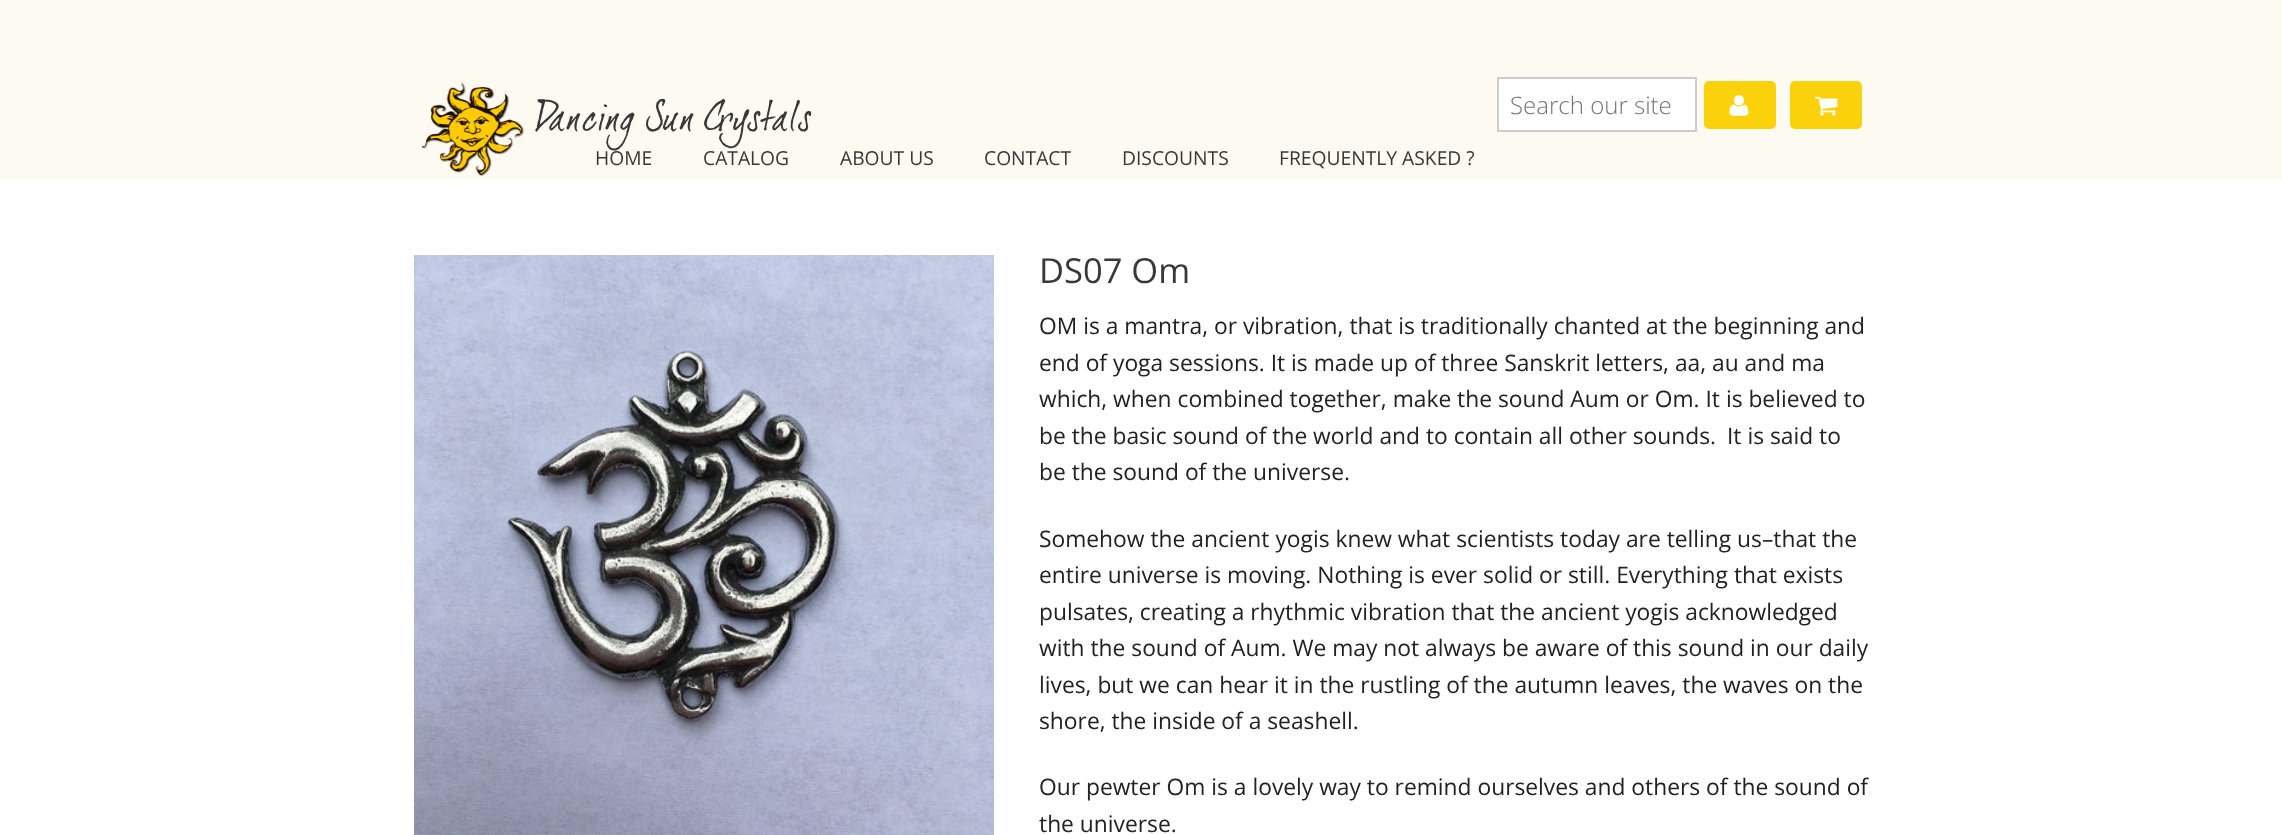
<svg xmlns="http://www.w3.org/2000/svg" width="2282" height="835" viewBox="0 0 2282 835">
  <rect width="100%" height="100%" fill="rgb(255,255,255)"/>
  <rect x="0" y="0" width="2282" height="179" fill="rgb(252,250,241)"/>
  <rect x="1498" y="78" width="198" height="53" fill="rgb(255,255,255)" stroke="rgb(204,204,204)" stroke-width="2"/>
  <text x="1510" y="114" font-family="Open Sans" font-size="24" font-weight="300" fill="rgb(117,117,117)">Search our site</text>
  <rect x="1704" y="81" width="72" height="48" rx="5" fill="rgb(251,209,11)"/>
  <image x="1729" y="95" width="20" height="21" href="pic1.png"/>
  <rect x="1790" y="81" width="72" height="48" rx="5" fill="rgb(251,209,11)"/>
  <image x="1815" y="96" width="23" height="20" href="pic2.png"/>
  <g font-family="Open Sans" font-size="19.25" fill="rgb(56,56,56)">
    <text x="595" y="165">HOME</text>
    <text x="703" y="165">CATALOG</text>
    <text x="840" y="165">ABOUT US</text>
    <text x="984" y="165">CONTACT</text>
    <text x="1122" y="165">DISCOUNTS</text>
    <text x="1279" y="165">FREQUENTLY ASKED ?</text>
  </g>
  <image x="422" y="83" width="102" height="94" href="pic3.png"/>
  <text x="536" y="130" font-family="'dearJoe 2'" font-size="40.5" fill="rgb(56,56,56)">Dancing Sun Crystals</text>
  <image x="414" y="255" width="580" height="580" href="pic4.png"/>
  <text x="1039" y="283" font-family="Open Sans" font-size="34.5" fill="rgb(56,56,56)">DS07 Om</text>
  <g font-family="Open Sans" font-size="22.8" fill="rgb(34,34,34)">
    <text>
      <tspan x="1039" y="334">OM is a mantra, or vibration, that is traditionally chanted at the beginning and</tspan>
      <tspan x="1039" y="371">end of yoga sessions. It is made up of three Sanskrit letters, aa, au and ma</tspan>
      <tspan x="1039" y="407">which, when combined together, make the sound Aum or Om. It is believed to</tspan>
      <tspan x="1039" y="444">be the basic sound of the world and to contain all other sounds.</tspan>
    </text>
    <text x="1727" y="444">It is said to</text>
    <text x="1039" y="480">be the sound of the universe.</text>
    <text>
      <tspan x="1039" y="547">Somehow the ancient yogis knew what scientists today are telling us–that the</tspan>
      <tspan x="1039" y="583">entire universe is moving. Nothing is ever solid or still. Everything that exists</tspan>
      <tspan x="1039" y="620">pulsates, creating a rhythmic vibration that the ancient yogis acknowledged</tspan>
      <tspan x="1039" y="656">with the sound of Aum. We may not always be aware of this sound in our daily</tspan>
      <tspan x="1039" y="693">lives, but we can hear it in the rustling of the autumn leaves, the waves on the</tspan>
      <tspan x="1039" y="729">shore, the inside of a seashell.</tspan>
    </text>
    <text>
      <tspan x="1039" y="795">Our pewter Om is a lovely way to remind ourselves and others of the sound of</tspan>
      <tspan x="1039" y="832">the universe.</tspan>
    </text>
  </g>
</svg>
